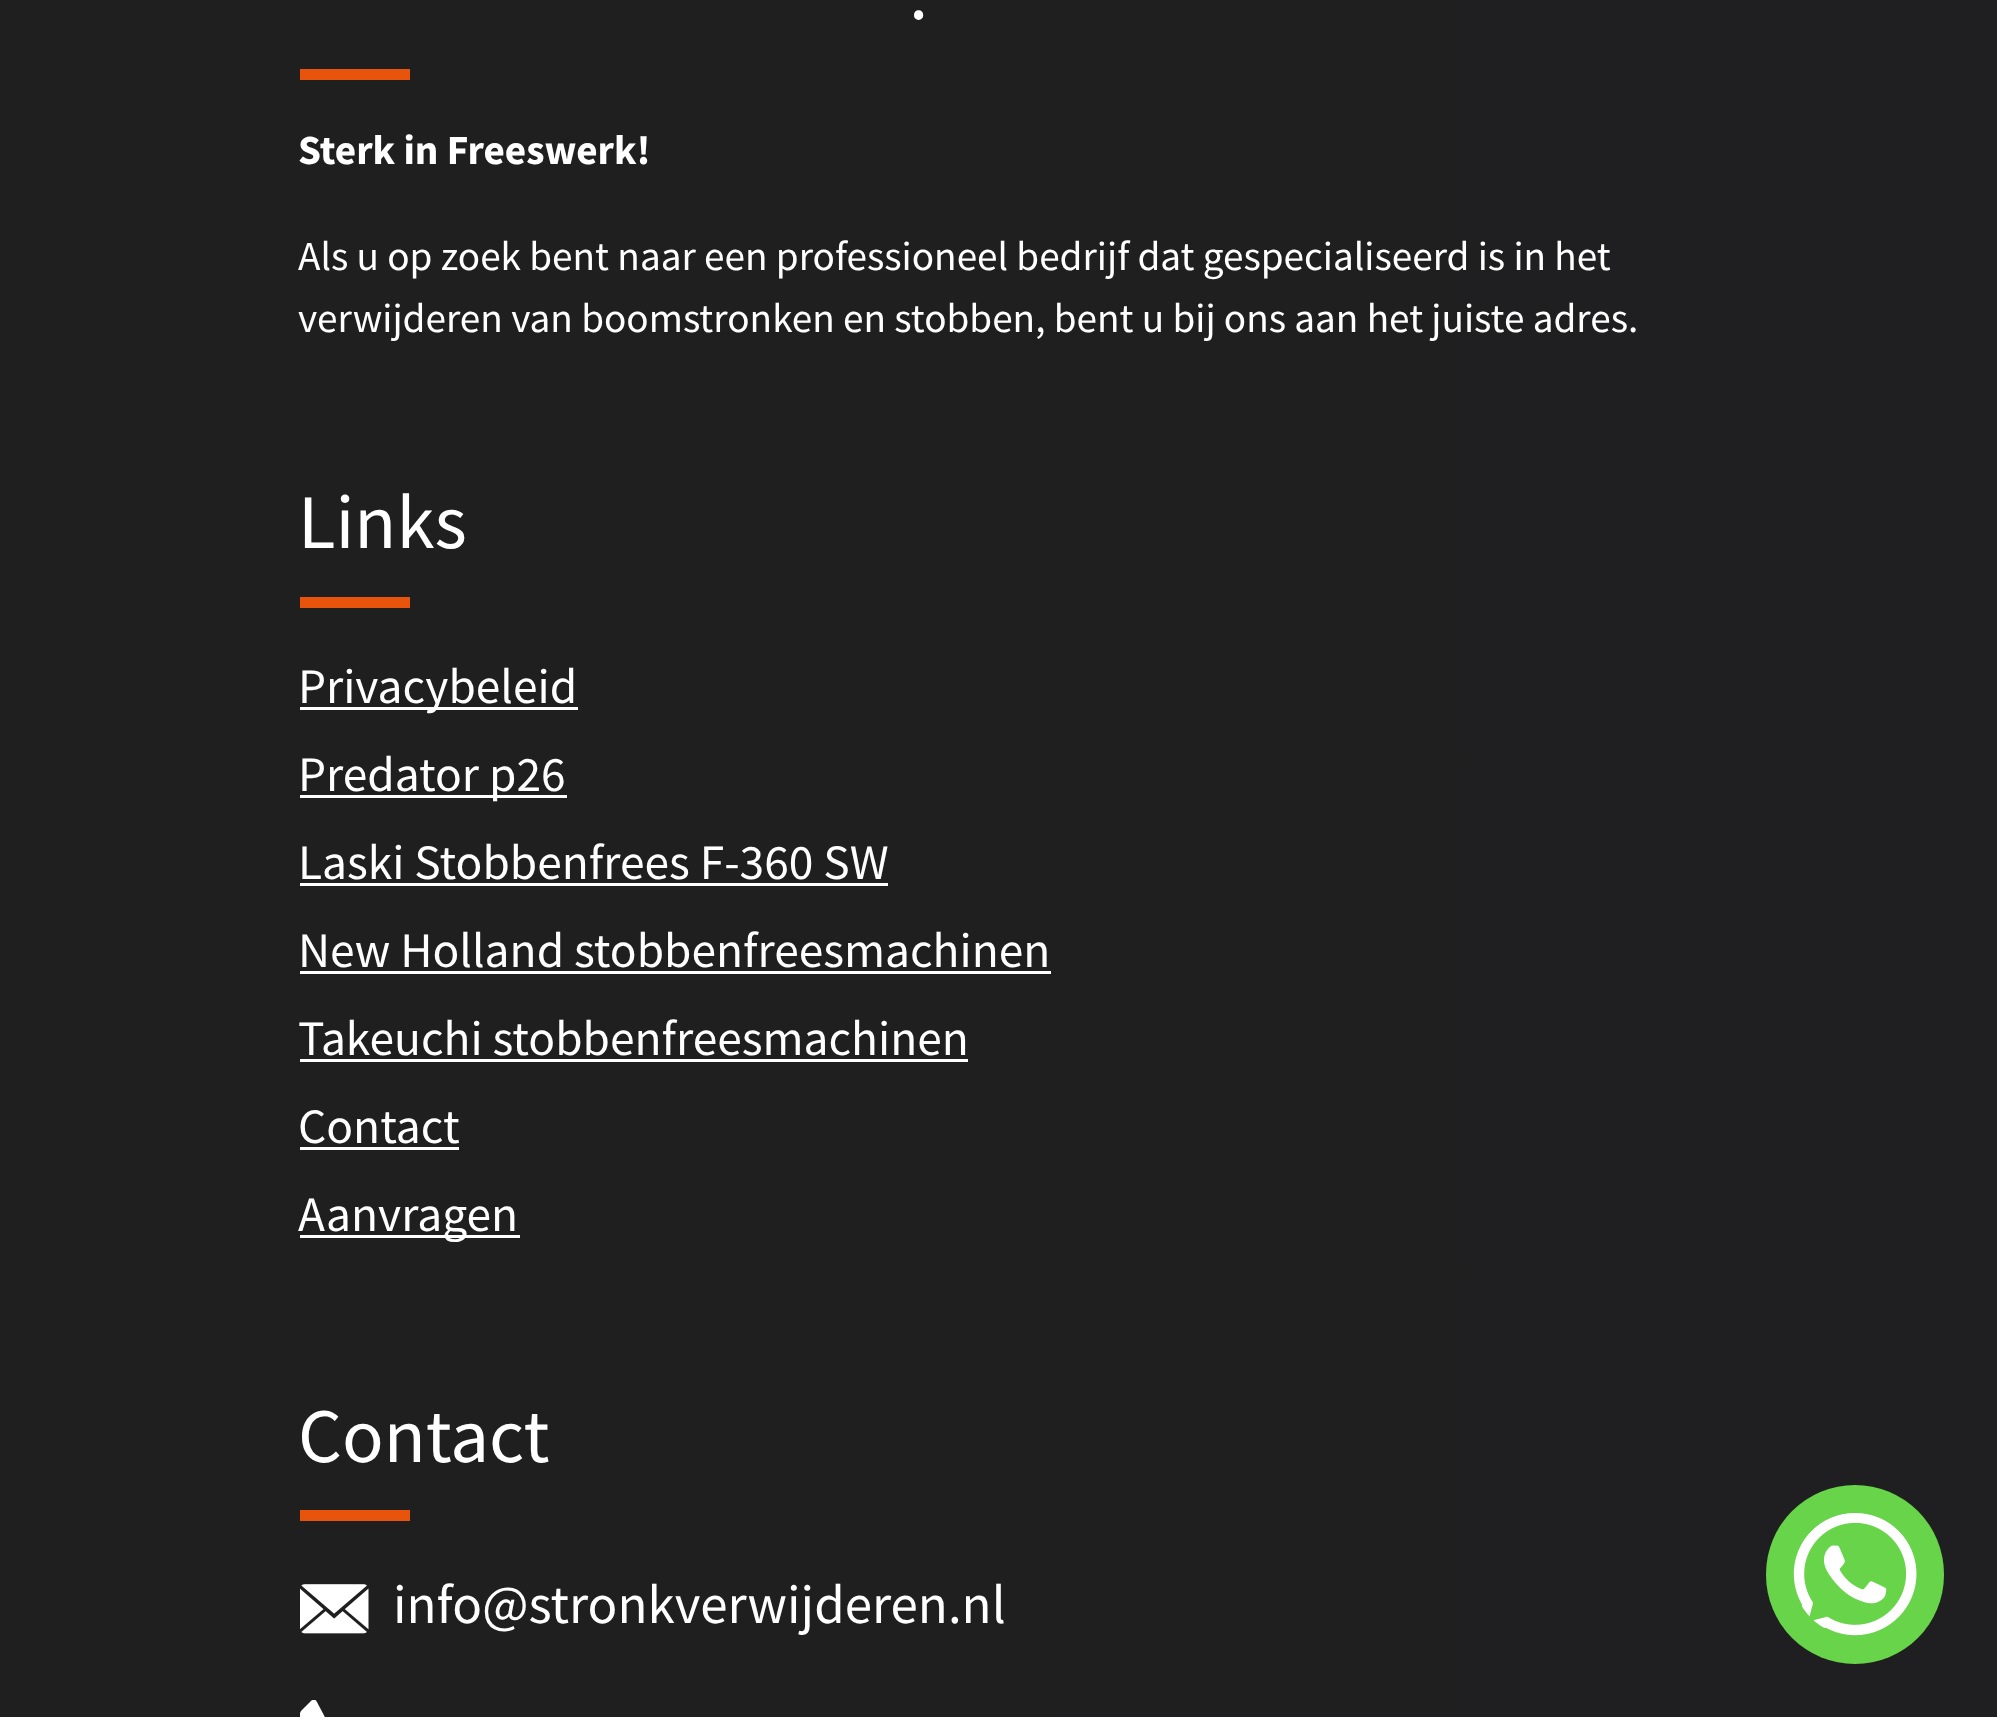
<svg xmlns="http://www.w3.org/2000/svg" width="1997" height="1717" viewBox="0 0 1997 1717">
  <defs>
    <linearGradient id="g1" gradientUnits="userSpaceOnUse" x1="0" y1="1103" x2="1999" y2="1103"><stop offset="0" stop-color="rgb(31,31,31)"/><stop offset="1" stop-color="rgb(31,31,33)"/></linearGradient>
  </defs>
  <rect width="100%" height="100%" fill="rgb(255,255,255)"/>
  <rect x="0" y="0" width="1997" height="1717" fill="url(#g1)"/>
  <text x="909" y="19" font-family="Source Sans Pro" font-size="77" fill="rgb(255,255,255)">.</text>
  <rect x="300" y="69" width="110" height="11" fill="rgb(233,84,13)"/>
  <text x="298" y="164" font-family="Source Sans Pro" font-size="41.25" font-weight="bold" fill="rgb(255,255,255)">Sterk in Freeswerk!</text>
  <g font-family="Source Sans Pro" font-size="41.25" fill="rgb(255,255,255)">
    <text>
      <tspan x="298" y="270">Als u op zoek bent naar een professioneel bedrijf dat gespecialiseerd is in het</tspan>
      <tspan x="298" y="332">verwijderen van boomstronken en stobben, bent u bij ons aan het juiste adres.</tspan>
    </text>
  </g>
  <text x="298" y="548" font-family="Source Sans Pro" font-size="77" fill="rgb(255,255,255)">Links</text>
  <rect x="300" y="597" width="110" height="11" fill="rgb(233,84,13)"/>
  <rect x="300" y="707" width="278" height="3" fill="rgb(255,255,255)"/>
  <text x="298" y="703" font-family="Source Sans Pro" font-size="49.5" fill="rgb(255,255,255)">Privacybeleid</text>
  <rect x="300" y="795" width="267" height="3" fill="rgb(255,255,255)"/>
  <g font-family="Source Sans Pro" font-size="49.5" fill="rgb(255,255,255)">
    <text>
      <tspan x="298" y="791">Predator p26</tspan>
      <tspan x="298" y="879">Laski Stobbenfrees F-360 SW</tspan>
    </text>
  </g>
  <rect x="300" y="883" width="588" height="3" fill="rgb(255,255,255)"/>
  <text x="298" y="967" font-family="Source Sans Pro" font-size="49.5" fill="rgb(255,255,255)">New Holland stobbenfreesmachinen</text>
  <rect x="300" y="971" width="751" height="3" fill="rgb(255,255,255)"/>
  <text x="298" y="1055" font-family="Source Sans Pro" font-size="49.5" fill="rgb(255,255,255)">Takeuchi stobbenfreesmachinen</text>
  <rect x="300" y="1059" width="668" height="3" fill="rgb(255,255,255)"/>
  <text x="298" y="1143" font-family="Source Sans Pro" font-size="49.5" fill="rgb(255,255,255)">Contact</text>
  <rect x="300" y="1147" width="159" height="3" fill="rgb(255,255,255)"/>
  <rect x="300" y="1235" width="220" height="3" fill="rgb(255,255,255)"/>
  <text x="298" y="1231" font-family="Source Sans Pro" font-size="49.5" fill="rgb(255,255,255)">Aanvragen</text>
  <text x="298" y="1462" font-family="Source Sans Pro" font-size="77" fill="rgb(255,255,255)">Contact</text>
  <rect x="300" y="1510" width="110" height="11" fill="rgb(233,84,13)"/>
  <image x="300" y="1584" width="69" height="50" href="pic1.png"/>
  <text x="393" y="1623" font-family="Source Sans Pro" font-size="55" fill="rgb(255,255,255)">info@stronkverwijderen.nl</text>
  <image x="300" y="1700" width="25" height="17" href="pic2.png"/>
  <rect x="1766" y="1485" width="178" height="179" rx="89" fill="rgb(103,212,73)"/>
  <image x="1793" y="1513" width="124" height="123" href="pic3.png"/>
</svg>
